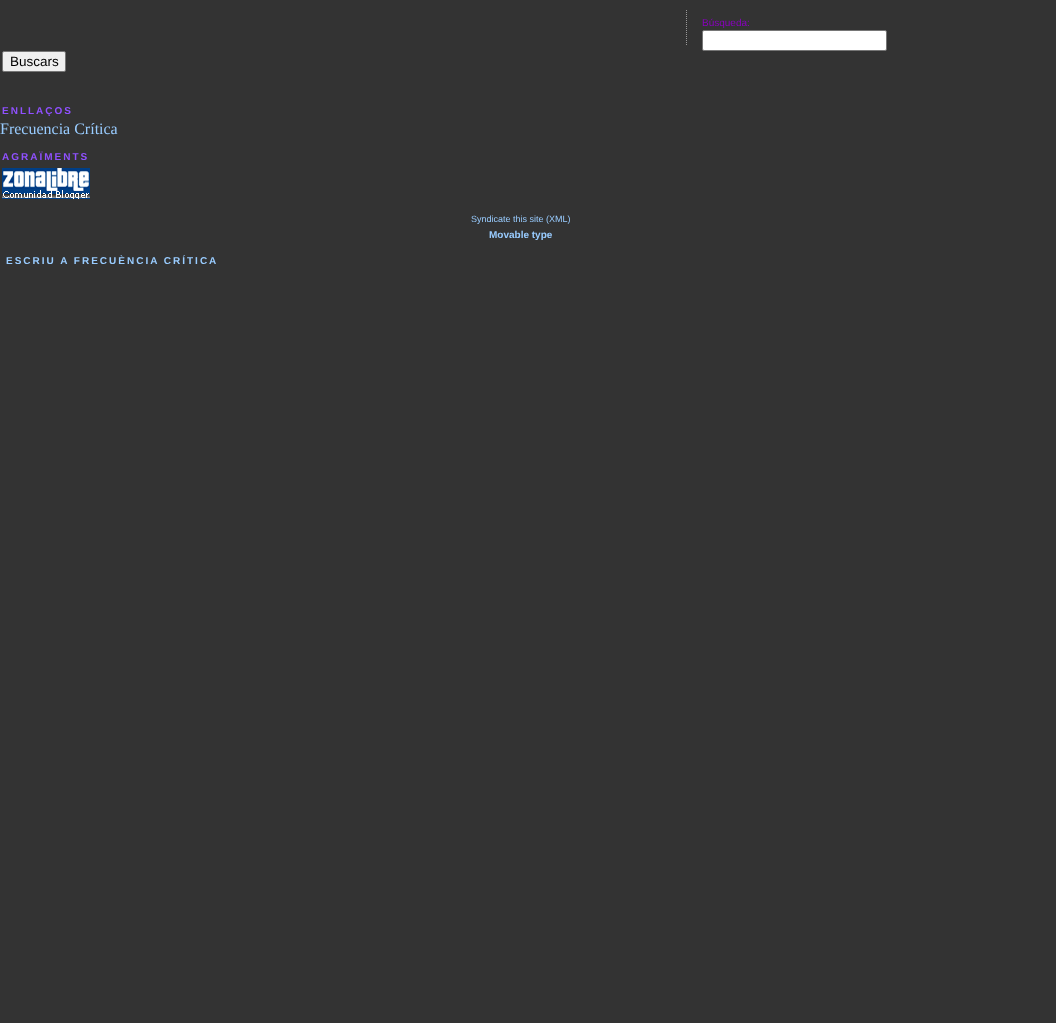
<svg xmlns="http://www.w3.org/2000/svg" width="1056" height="1023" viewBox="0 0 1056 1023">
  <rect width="100%" height="100%" fill="rgb(51,51,51)"/>
  <path d="M686.5 10V45" fill="none" stroke="rgb(153,153,153)" stroke-dasharray="1 1"/>
  <text x="702" y="26" font-family="Liberation Sans" font-size="10" fill="rgb(138,0,192)">Búsqueda:</text>
  <rect x="702.5" y="30.5" width="184" height="20" rx="1.5" fill="rgb(255,255,255)" stroke="rgb(118,118,118)"/>
  <rect x="2.5" y="51.5" width="63" height="20" rx="1.5" fill="rgb(239,239,239)" stroke="rgb(118,118,118)"/>
  <text x="10" y="66" font-family="Liberation Sans" font-size="13.5" fill="rgb(0,0,0)">Buscars</text>
  <text x="2" y="114" font-family="Liberation Sans" font-size="10" font-weight="bold" letter-spacing="2" fill="rgb(144,81,255)">ENLLAÇOS</text>
  <text x="0" y="134" font-family="Liberation Serif" font-size="16" fill="rgb(153,204,255)">Frecuencia Crítica</text>
  <text x="2" y="160" font-family="Liberation Sans" font-size="10" font-weight="bold" letter-spacing="2" fill="rgb(144,81,255)">AGRAÏMENTS</text>
  <image x="2" y="168" width="88" height="31" href="pic1.png"/>
  <text x="471" y="222" font-family="Liberation Sans" font-size="9" fill="rgb(153,204,255)">Syndicate this site (XML)</text>
  <text x="489" y="238" font-family="Liberation Sans" font-size="10" font-weight="bold" fill="rgb(153,204,255)">Movable type</text>
  <text x="6" y="264" font-family="Liberation Sans" font-size="10" font-weight="bold" letter-spacing="2" fill="rgb(153,204,255)">ESCRIU A FRECUÈNCIA CRÍTICA</text>
</svg>
